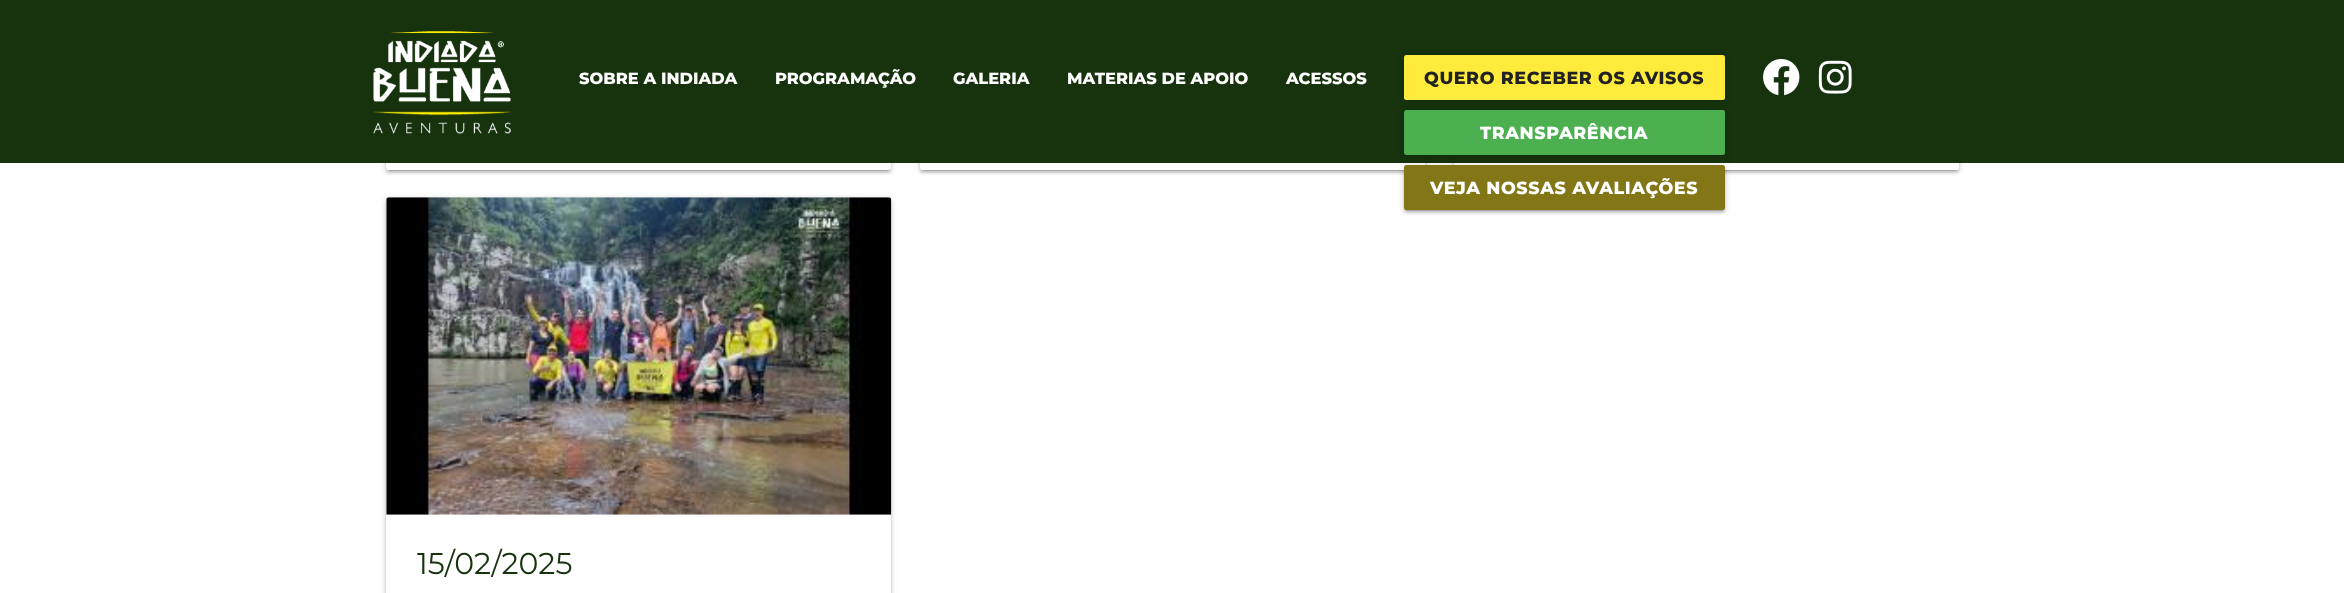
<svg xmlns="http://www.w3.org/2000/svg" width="2344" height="593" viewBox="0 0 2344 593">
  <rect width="100%" height="100%" fill="rgb(255,255,255)"/>
  <rect x="386" y="-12" width="505" height="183" rx="2.5" fill="rgba(0,0,0,0.2)" filter="blur(3px)"/>
  <rect x="389" y="-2" width="500" height="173" fill="rgba(0,0,0,0.12)" filter="blur(0.5px)"/>
  <rect x="386" y="-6" width="505" height="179" rx="2.5" fill="rgba(0,0,0,0.14)" filter="blur(1px)"/>
  <rect x="386" y="-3" width="505" height="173" rx="2.5" fill="rgb(255,255,255)"/>
  <rect x="920" y="-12" width="505" height="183" rx="2.5" fill="rgba(0,0,0,0.2)" filter="blur(3px)"/>
  <rect x="923" y="-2" width="500" height="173" fill="rgba(0,0,0,0.12)" filter="blur(0.5px)"/>
  <rect x="920" y="-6" width="505" height="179" rx="2.5" fill="rgba(0,0,0,0.14)" filter="blur(1px)"/>
  <rect x="920" y="-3" width="505" height="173" rx="2.5" fill="rgb(255,255,255)"/>
  <rect x="1454" y="-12" width="505" height="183" rx="2.5" fill="rgba(0,0,0,0.2)" filter="blur(3px)"/>
  <rect x="1456" y="-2" width="500" height="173" fill="rgba(0,0,0,0.12)" filter="blur(0.5px)"/>
  <rect x="1454" y="-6" width="505" height="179" rx="2.5" fill="rgba(0,0,0,0.14)" filter="blur(1px)"/>
  <rect x="1454" y="-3" width="505" height="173" rx="2.5" fill="rgb(255,255,255)"/>
  <rect x="0" y="0" width="2344" height="163" fill="rgba(10,40,1,0.95)"/>
  <image x="373" y="31" width="138" height="103" href="pic1.png"/>
  <g font-family="Montserrat" font-size="16.25" font-weight="800" fill="rgb(255,255,255)">
    <text x="579" y="84">SOBRE A INDIADA</text>
    <text x="775" y="84">PROGRAMAÇÃO</text>
    <text x="953" y="84">GALERIA</text>
    <text x="1067" y="84">MATERIAS DE APOIO</text>
    <text x="1286" y="84">ACESSOS</text>
  </g>
  <rect x="1404" y="56" width="321" height="45" rx="2.5" fill="rgba(0,0,0,0.2)" filter="blur(3px)"/>
  <rect x="1404" y="55" width="321" height="45" rx="2.5" fill="rgb(255,235,59)"/>
  <text x="1424" y="84" font-family="Montserrat" font-size="17.5" font-weight="800" letter-spacing="0.6" fill="rgb(34,34,34)">QUERO RECEBER OS AVISOS</text>
  <rect x="1404" y="111" width="321" height="45" rx="2.5" fill="rgba(0,0,0,0.2)" filter="blur(3px)"/>
  <rect x="1404" y="110" width="321" height="45" rx="2.5" fill="rgb(76,175,80)"/>
  <text x="1480" y="139" font-family="Montserrat" font-size="17.5" font-weight="800" letter-spacing="0.6" fill="rgb(255,255,255)">TRANSPARÊNCIA</text>
  <rect x="1404" y="166" width="321" height="45" rx="2.5" fill="rgba(0,0,0,0.2)" filter="blur(3px)"/>
  <rect x="1406" y="171" width="317" height="40" fill="rgba(0,0,0,0.12)" filter="blur(0.5px)"/>
  <rect x="1404" y="168" width="321" height="45" rx="2.5" fill="rgba(0,0,0,0.14)" filter="blur(1px)"/>
  <rect x="1404" y="165" width="321" height="45" rx="2.5" fill="rgb(130,118,23)"/>
  <text x="1430" y="194" font-family="Montserrat" font-size="17.5" font-weight="800" letter-spacing="0.6" fill="rgb(255,255,255)">VEJA NOSSAS AVALIAÇÕES</text>
  <image x="1763" y="59" width="37" height="37" href="pic2.png"/>
  <image x="1818" y="60" width="34" height="34" href="pic3.png"/>
  <rect x="386" y="199" width="505" height="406" rx="2.5" fill="rgba(0,0,0,0.2)" filter="blur(3px)"/>
  <rect x="386" y="200" width="505" height="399" rx="2.5" fill="rgba(0,0,0,0.14)" filter="blur(1px)"/>
  <rect x="386" y="198" width="505" height="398" rx="2.5" fill="rgb(255,255,255)"/>
  <image x="386" y="197" width="506" height="318" href="pic4.png"/>
  <text x="417" y="574" font-family="Montserrat" font-size="30" fill="rgb(22,51,14)">15/02/2025</text>
</svg>
